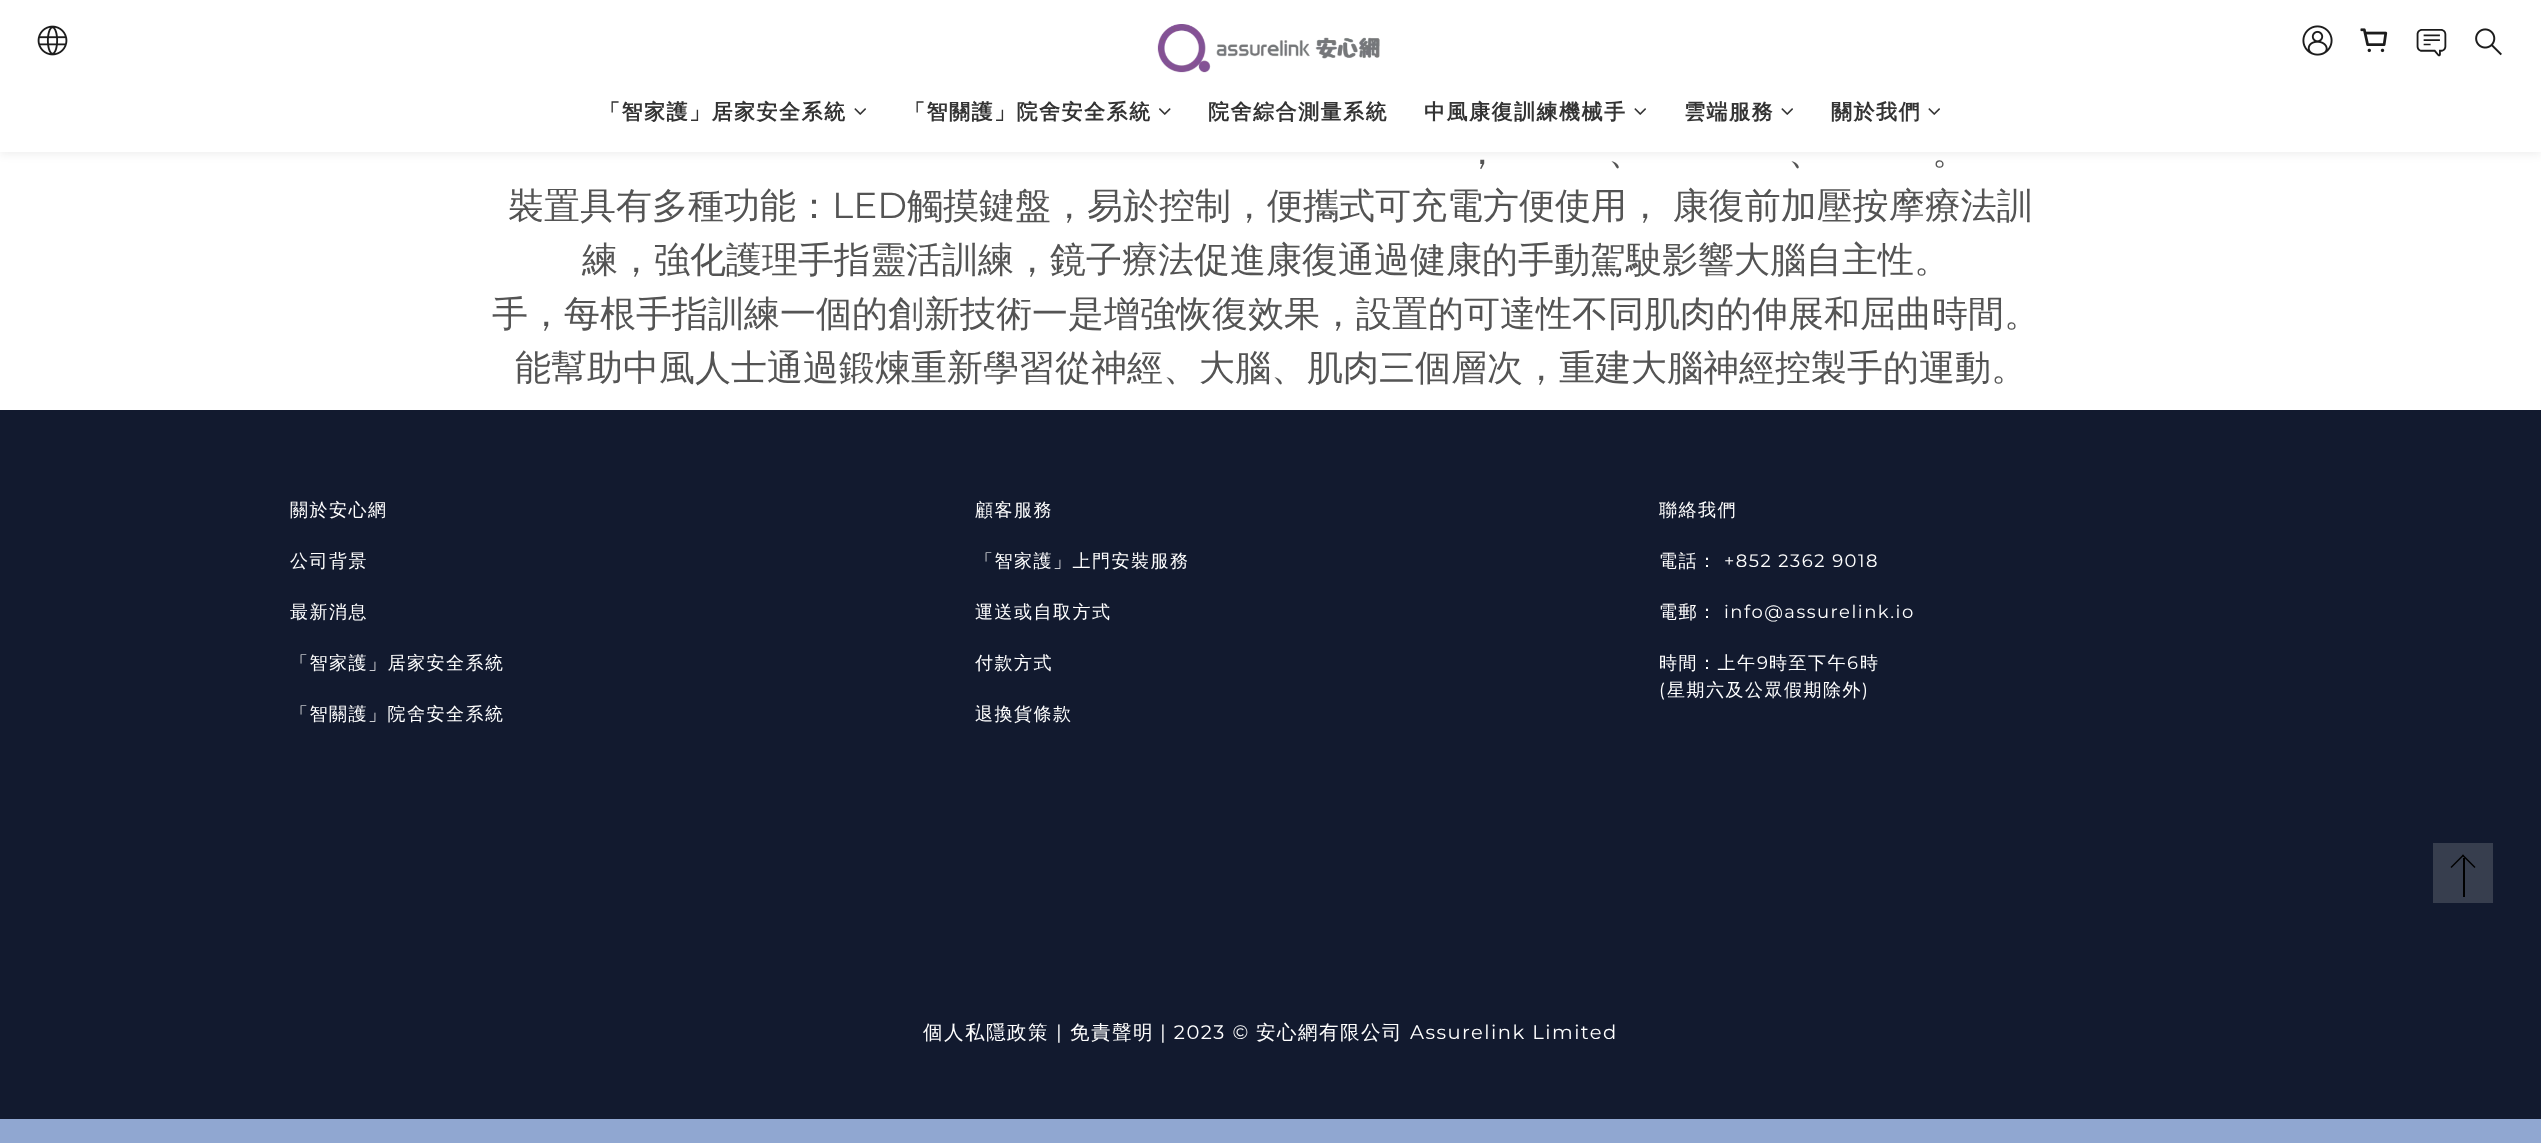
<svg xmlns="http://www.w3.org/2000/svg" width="2541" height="1143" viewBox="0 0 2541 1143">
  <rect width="100%" height="100%" fill="rgb(255,255,255)"/>
  <rect x="0" y="3" width="2541" height="152" fill="rgba(0,0,0,0.06)" filter="blur(4.5px)"/>
  <rect x="0" y="0" width="2541" height="152" fill="rgb(255,255,255)"/>
  <image x="37" y="25" width="31" height="31" href="pic1.png"/>
  <image x="2302" y="25" width="31" height="31" href="pic2.png"/>
  <image x="2360" y="28" width="28" height="25" href="pic3.png"/>
  <image x="2416" y="29" width="31" height="28" href="pic4.png"/>
  <image x="2475" y="28" width="27" height="28" href="pic5.png"/>
  <image x="1157" y="24" width="223" height="49" href="pic6.png"/>
  <text x="599" y="119" font-family="WenQuanYi Zen Hei" font-size="21" font-weight="bold" letter-spacing="1.5" fill="rgb(51,51,51)">「智家護」居家安全系統</text>
  <image x="854" y="108" width="12" height="7" href="pic7.png"/>
  <text x="904" y="119" font-family="WenQuanYi Zen Hei" font-size="21" font-weight="bold" letter-spacing="1.5" fill="rgb(51,51,51)">「智關護」院舍安全系統</text>
  <image x="1159" y="108" width="12" height="7" href="pic8.png"/>
  <g font-family="WenQuanYi Zen Hei" font-size="21" font-weight="bold" letter-spacing="1.5" fill="rgb(51,51,51)">
    <text x="1208" y="119">院舍綜合測量系統</text>
    <text x="1424" y="119">中風康復訓練機械手</text>
  </g>
  <image x="1634" y="108" width="12" height="7" href="pic7.png"/>
  <text x="1684" y="119" font-family="WenQuanYi Zen Hei" font-size="21" font-weight="bold" letter-spacing="1.5" fill="rgb(51,51,51)">雲端服務</text>
  <image x="1781" y="108" width="12" height="7" href="pic7.png"/>
  <text x="1831" y="119" font-family="WenQuanYi Zen Hei" font-size="21" font-weight="bold" letter-spacing="1.5" fill="rgb(51,51,51)">關於我們</text>
  <image x="1928" y="108" width="12" height="7" href="pic7.png"/>
  <g font-family="WenQuanYi Zen Hei" font-size="36" font-weight="500" fill="rgb(84,84,84)">
    <text x="1464" y="164">，</text>
    <text x="1608" y="164">、</text>
    <text x="1788" y="164">、</text>
    <text x="1932" y="164">。</text>
    <text x="508" y="218">裝置具有多種功能：</text>
  </g>
  <text x="832" y="218" font-family="Montserrat" font-size="36" fill="rgb(84,84,84)">LED</text>
  <g font-family="WenQuanYi Zen Hei" font-size="36" font-weight="500" fill="rgb(84,84,84)">
    <text x="907" y="218" word-spacing="-1">觸摸鍵盤，易於控制，便攜式可充電方便使用， 康復前加壓按摩療法訓</text>
    <text x="582" y="272">練，強化護理手指靈活訓練，鏡子療法促進康復通過健康的手動駕駛影響大腦自主性。</text>
    <text x="492" y="326">手，每根手指訓練一個的創新技術一是增強恢復效果，設置的可達性不同肌肉的伸展和屈曲時間。</text>
    <text x="515" y="380">能幫助中風人士通過鍛煉重新學習從神經、大腦、肌肉三個層次，重建大腦神經控製手的運動。</text>
  </g>
  <rect x="0" y="410" width="2541" height="709" fill="rgb(18,26,47)"/>
  <g font-family="WenQuanYi Zen Hei" font-size="18" font-weight="500" letter-spacing="1.5" fill="rgb(255,255,255)">
    <text x="290" y="516">關於安心網</text>
    <text x="290" y="567">公司背景</text>
    <text x="290" y="618">最新消息</text>
    <text x="290" y="669">「智家護」居家安全系統</text>
    <text x="290" y="720">「智關護」院舍安全系統</text>
    <text x="975" y="516">顧客服務</text>
    <text x="975" y="567">「智家護」上門安裝服務</text>
    <text x="975" y="618">運送或自取方式</text>
    <text x="975" y="669">付款方式</text>
    <text x="975" y="720">退換貨條款</text>
    <text x="1659" y="516">聯絡我們</text>
    <text x="1659" y="567">電話：</text>
  </g>
  <text x="1724" y="567" font-family="Montserrat" font-size="18" letter-spacing="1.5" fill="rgb(255,255,255)">+852 2362 9018</text>
  <text x="1659" y="618" font-family="WenQuanYi Zen Hei" font-size="18" font-weight="500" letter-spacing="1.5" fill="rgb(255,255,255)">電郵：</text>
  <text x="1724" y="618" font-family="Montserrat" font-size="18" letter-spacing="1.5" fill="rgb(255,255,255)">info@assurelink.io</text>
  <text x="1659" y="669" font-family="WenQuanYi Zen Hei" font-size="18" font-weight="500" letter-spacing="1.5" fill="rgb(255,255,255)">時間：上午</text>
  <text x="1757" y="669" font-family="Montserrat" font-size="18" letter-spacing="1.5" fill="rgb(255,255,255)">9</text>
  <text x="1769" y="669" font-family="WenQuanYi Zen Hei" font-size="18" font-weight="500" letter-spacing="1.5" fill="rgb(255,255,255)">時至下午</text>
  <text x="1847" y="669" font-family="Montserrat" font-size="18" letter-spacing="1.5" fill="rgb(255,255,255)">6</text>
  <text x="1860" y="669" font-family="WenQuanYi Zen Hei" font-size="18" font-weight="500" letter-spacing="1.5" fill="rgb(255,255,255)">時</text>
  <text x="1659" y="696" font-family="Montserrat" font-size="18" letter-spacing="1.5" fill="rgb(255,255,255)">(</text>
  <text x="1667" y="696" font-family="WenQuanYi Zen Hei" font-size="18" font-weight="500" letter-spacing="1.5" fill="rgb(255,255,255)">星期六及公眾假期除外</text>
  <text x="1862" y="696" font-family="Montserrat" font-size="18" letter-spacing="1.5" fill="rgb(255,255,255)">)</text>
  <text x="923" y="1039" font-family="WenQuanYi Zen Hei" font-size="19.5" font-weight="500" letter-spacing="1.5" fill="rgb(255,255,255)">個人私隱政策</text>
  <text x="1056" y="1039" font-family="Montserrat" font-size="19.5" letter-spacing="1.5" fill="rgb(255,255,255)">|</text>
  <text x="1070" y="1039" font-family="WenQuanYi Zen Hei" font-size="19.5" font-weight="500" letter-spacing="1.5" fill="rgb(255,255,255)">免責聲明</text>
  <text x="1160" y="1039" font-family="Montserrat" font-size="19.5" letter-spacing="1.5" fill="rgb(255,255,255)">| 2023 ©</text>
  <text x="1256" y="1039" font-family="WenQuanYi Zen Hei" font-size="19.5" font-weight="500" letter-spacing="1.5" fill="rgb(255,255,255)">安心網有限公司</text>
  <text x="1410" y="1039" font-family="Montserrat" font-size="19.5" letter-spacing="1.5" fill="rgb(255,255,255)">Assurelink Limited</text>
  <rect x="0" y="1119" width="2541" height="24" fill="rgb(144,167,209)"/>
  <rect x="2433" y="843" width="60" height="60" fill="rgb(55,62,78)"/>
  <path d="M2463 854.5L2475.5 867L2474.5 868L2462 855.5Z" fill="rgb(0,0,0)"/>
  <path d="M2463 854.5L2464 855.5L2451.5 868L2450.5 867Z" fill="rgb(0,0,0)"/>
  <rect x="2463" y="858" width="2" height="39" fill="rgb(0,0,0)"/>
</svg>
